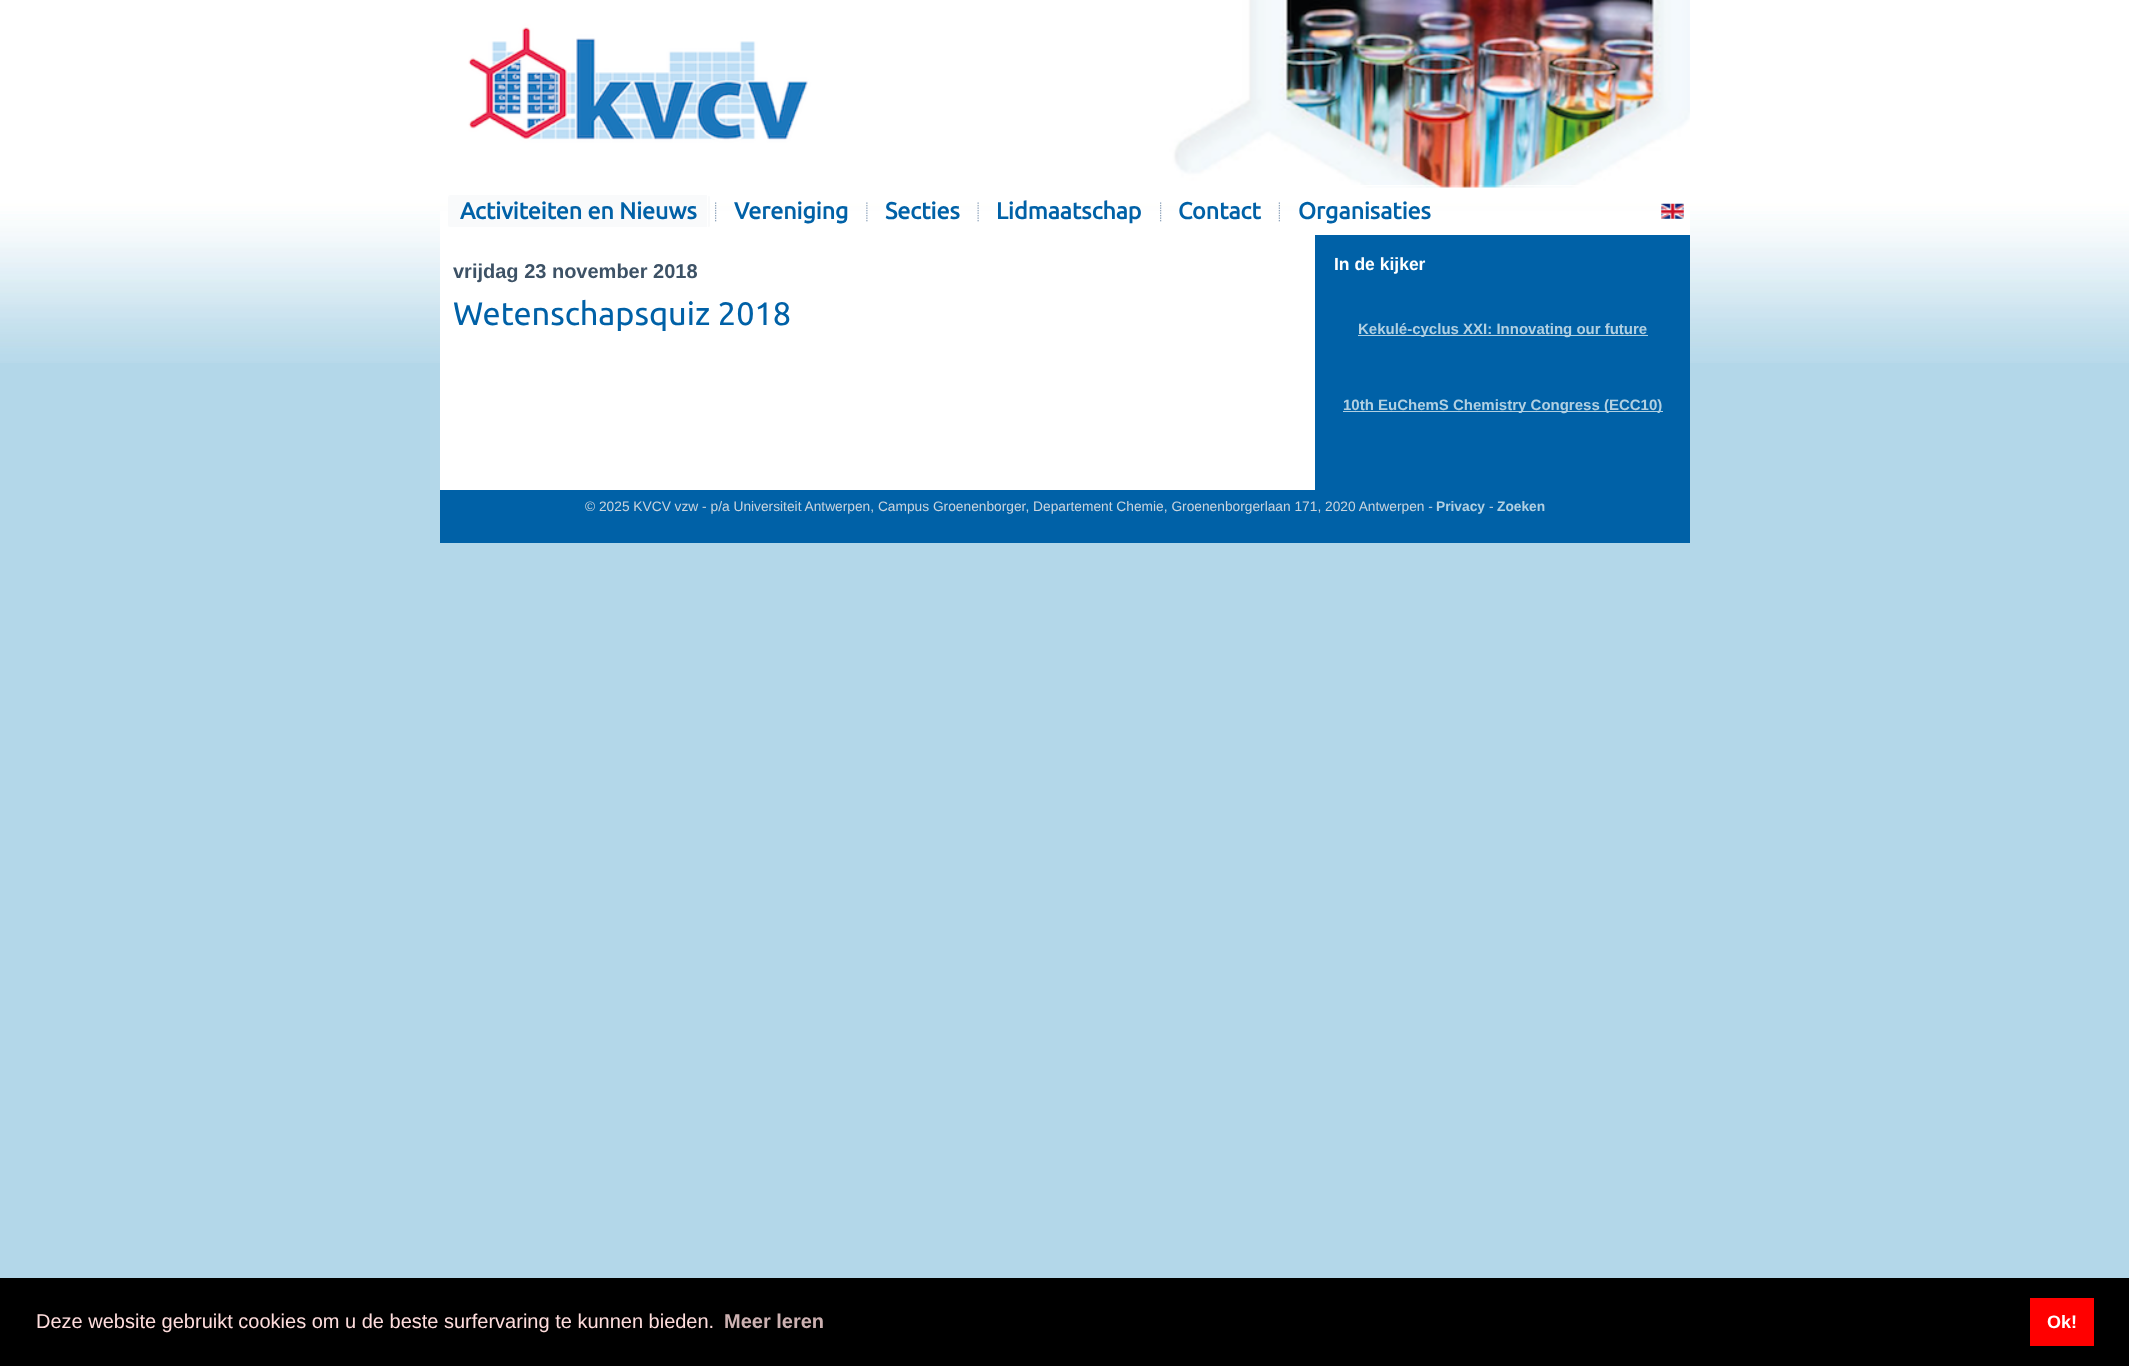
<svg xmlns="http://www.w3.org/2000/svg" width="2129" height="1366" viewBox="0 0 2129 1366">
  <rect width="100%" height="100%" fill="rgb(179,215,233)"/>
  <image x="0" y="0" width="2129" height="363" href="pic1.png"/>
  <image x="468" y="0" width="1222" height="188" href="pic2.png"/>
  <rect x="440" y="211" width="1250" height="279" fill="rgb(255,255,255)"/>
  <image x="448" y="195" width="259" height="32" href="pic3.png"/>
  <image x="708" y="196" width="2" height="31" href="pic4.png"/>
  <text x="460" y="219" font-family="Ubuntu" font-size="23.25" font-weight="bold" fill="rgb(0,97,167)">Activiteiten en Nieuws</text>
  <image x="715" y="202" width="2" height="20" href="pic5.png"/>
  <text x="734" y="219" font-family="Ubuntu" font-size="23.25" font-weight="bold" fill="rgb(0,97,167)">Vereniging</text>
  <image x="866" y="202" width="2" height="20" href="pic6.png"/>
  <text x="885" y="219" font-family="Ubuntu" font-size="23.25" font-weight="bold" fill="rgb(0,97,167)">Secties</text>
  <image x="977" y="202" width="2" height="20" href="pic7.png"/>
  <text x="996" y="219" font-family="Ubuntu" font-size="23.25" font-weight="bold" fill="rgb(0,97,167)">Lidmaatschap</text>
  <image x="1160" y="202" width="2" height="20" href="pic5.png"/>
  <text x="1178" y="219" font-family="Ubuntu" font-size="23.25" font-weight="bold" fill="rgb(0,97,167)">Contact</text>
  <image x="1278" y="202" width="2" height="20" href="pic8.png"/>
  <text x="1298" y="219" font-family="Ubuntu" font-size="23.25" font-weight="bold" fill="rgb(0,97,167)">Organisaties</text>
  <image x="1661" y="203" width="23" height="16" href="pic9.png"/>
  <text x="453" y="278" font-family="Liberation Sans" font-size="20" font-weight="bold" fill="rgb(61,82,102)">vrijdag 23 november 2018</text>
  <text x="453" y="325" font-family="Ubuntu" font-size="32.5" fill="rgb(0,97,167)">Wetenschapsquiz 2018</text>
  <rect x="1315" y="235" width="375" height="255" fill="rgb(0,97,167)"/>
  <text x="1334" y="270" font-family="Liberation Sans" font-size="17.5" font-weight="bold" fill="rgb(255,255,255)">In de kijker</text>
  <rect x="1358" y="335" width="290" height="1" fill="rgb(177,208,226)"/>
  <text x="1358" y="334" font-family="Liberation Sans" font-size="15" font-weight="bold" fill="rgb(177,208,226)">Kekulé-cyclus XXI: Innovating our future</text>
  <rect x="1343" y="411" width="320" height="1" fill="rgb(177,208,226)"/>
  <text x="1343" y="410" font-family="Liberation Sans" font-size="15" font-weight="bold" fill="rgb(177,208,226)">10th EuChemS Chemistry Congress (ECC10)</text>
  <rect x="440" y="490" width="1250" height="53" fill="rgb(0,97,167)"/>
  <text x="585" y="511" font-family="Liberation Sans" font-size="13.75" fill="rgb(201,212,222)">© 2025 KVCV vzw - p/a Universiteit Antwerpen, Campus Groenenborger, Departement Chemie, Groenenborgerlaan 171, 2020 Antwerpen -</text>
  <text x="1436" y="511" font-family="Liberation Sans" font-size="13.75" font-weight="bold" fill="rgb(177,208,226)">Privacy</text>
  <text x="1489" y="511" font-family="Liberation Sans" font-size="13.75" fill="rgb(201,212,222)">-</text>
  <text x="1497" y="511" font-family="Liberation Sans" font-size="13.75" font-weight="bold" fill="rgb(177,208,226)">Zoeken</text>
  <rect x="0" y="1278" width="2129" height="88" fill="rgb(0,0,0)"/>
  <text x="36" y="1328" font-family="Liberation Sans" font-size="20" fill="rgb(255,221,221)">Deze website gebruikt cookies om u de beste surfervaring te kunnen bieden.</text>
  <text x="724" y="1328" font-family="Liberation Sans" font-size="20" font-weight="bold" fill="rgb(204,177,177)">Meer leren</text>
  <rect x="2030" y="1298" width="64" height="48" fill="rgb(255,0,0)"/>
  <text x="2047" y="1328" font-family="Liberation Sans" font-size="18" font-weight="bold" fill="rgb(255,255,255)">Ok!</text>
</svg>
